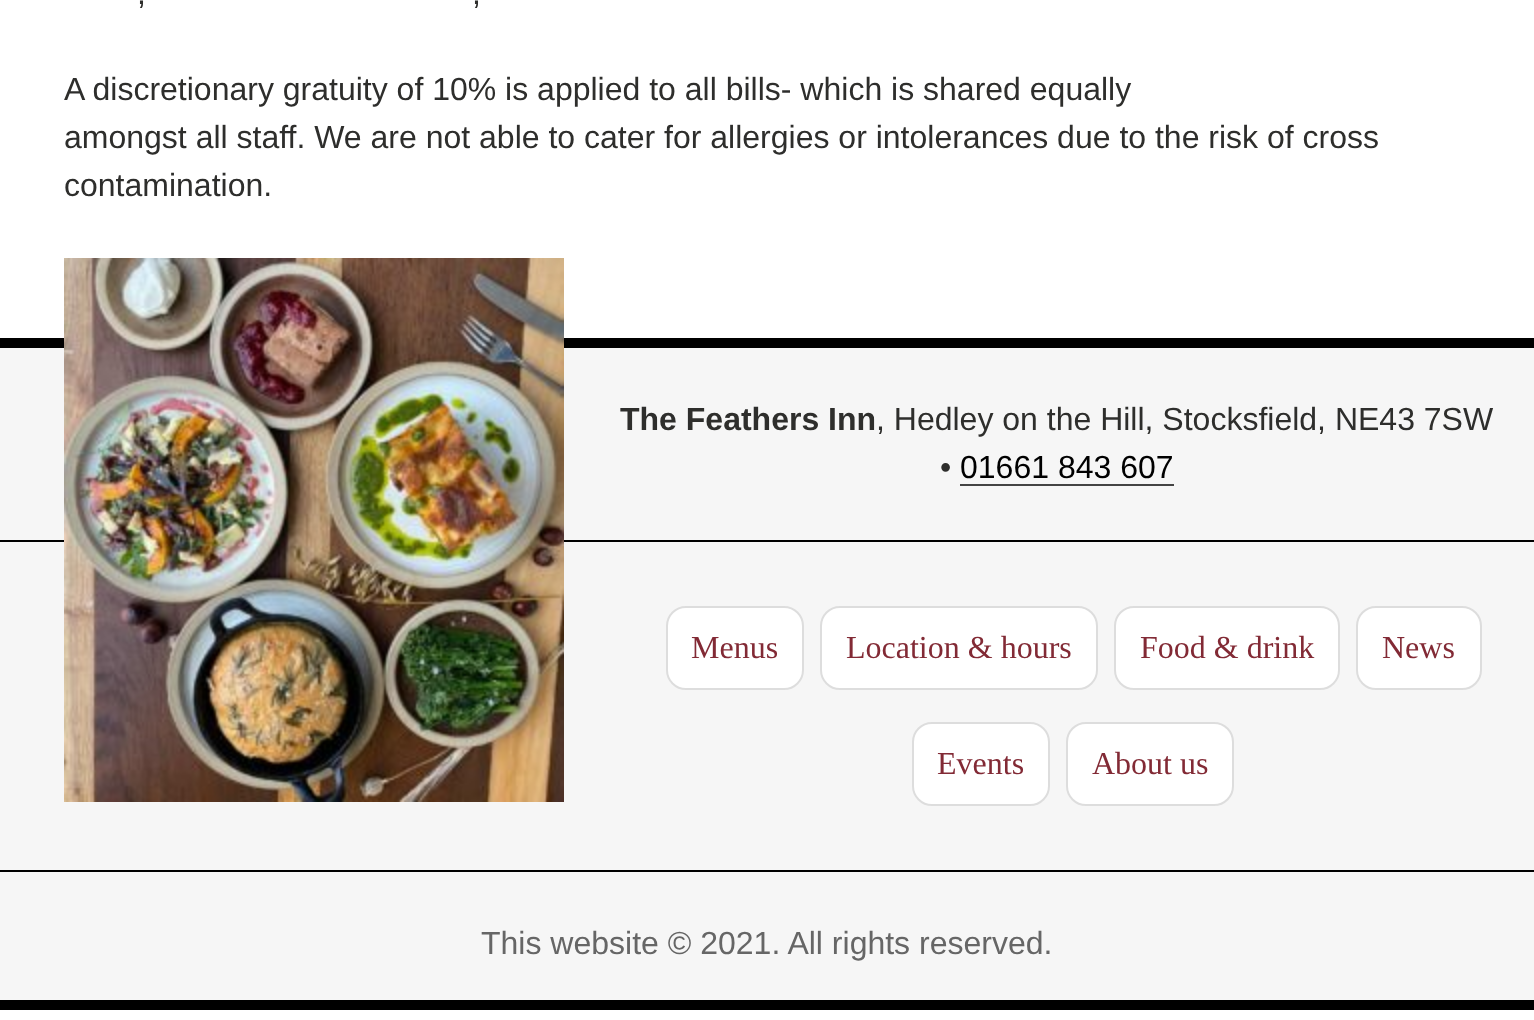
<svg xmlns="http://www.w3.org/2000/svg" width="1534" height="1020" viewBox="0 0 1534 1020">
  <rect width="100%" height="100%" fill="rgb(255,255,255)"/>
  <g font-family="Liberation Sans" font-size="32" fill="rgb(46,46,44)">
    <text x="137" y="4">,</text>
    <text x="472" y="4">,</text>
    <text>
      <tspan x="64" y="100">A discretionary gratuity of 10% is applied to all bills- which is shared equally</tspan>
      <tspan x="64" y="148">amongst all staff. We are not able to cater for allergies or intolerances due to the risk of cross</tspan>
      <tspan x="64" y="196">contamination.</tspan>
    </text>
  </g>
  <rect x="0" y="348" width="1534" height="652" fill="rgb(246,246,246)"/>
  <rect x="0" y="338" width="1534" height="10" fill="rgb(0,0,0)"/>
  <rect x="0" y="540" width="1534" height="2" fill="rgb(0,0,0)"/>
  <image x="64" y="258" width="500" height="544" href="pic1.png"/>
  <rect x="0" y="1000" width="1534" height="10" fill="rgb(0,0,0)"/>
  <text x="620" y="430" font-family="Liberation Sans" font-size="32" font-weight="bold" fill="rgb(46,46,44)">The Feathers Inn</text>
  <g font-family="Liberation Sans" font-size="32" fill="rgb(46,46,44)">
    <text x="876" y="430">, Hedley on the Hill, Stocksfield, NE43 7SW</text>
    <text x="940" y="478">•</text>
  </g>
  <text x="960" y="478" font-family="Liberation Sans" font-size="32" fill="rgb(0,0,0)">01661 843 607</text>
  <rect x="960" y="484" width="214" height="2" fill="rgb(68,68,68)"/>
  <rect x="0" y="870" width="1534" height="2" fill="rgb(0,0,0)"/>
  <rect x="667" y="607" width="136" height="82" rx="19" fill="rgb(255,255,255)" stroke="rgb(221,221,221)" stroke-width="2"/>
  <text x="691" y="658" font-family="Liberation Serif" font-size="32" fill="rgb(130,42,53)">Menus</text>
  <rect x="821" y="607" width="276" height="82" rx="19" fill="rgb(255,255,255)" stroke="rgb(221,221,221)" stroke-width="2"/>
  <text x="846" y="658" font-family="Liberation Serif" font-size="32" fill="rgb(130,42,53)">Location &amp; hours</text>
  <rect x="1115" y="607" width="224" height="82" rx="19" fill="rgb(255,255,255)" stroke="rgb(221,221,221)" stroke-width="2"/>
  <text x="1140" y="658" font-family="Liberation Serif" font-size="32" fill="rgb(130,42,53)">Food &amp; drink</text>
  <rect x="1357" y="607" width="124" height="82" rx="19" fill="rgb(255,255,255)" stroke="rgb(221,221,221)" stroke-width="2"/>
  <text x="1382" y="658" font-family="Liberation Serif" font-size="32" fill="rgb(130,42,53)">News</text>
  <rect x="913" y="723" width="136" height="82" rx="19" fill="rgb(255,255,255)" stroke="rgb(221,221,221)" stroke-width="2"/>
  <text x="937" y="774" font-family="Liberation Serif" font-size="32" fill="rgb(130,42,53)">Events</text>
  <rect x="1067" y="723" width="166" height="82" rx="19" fill="rgb(255,255,255)" stroke="rgb(221,221,221)" stroke-width="2"/>
  <text x="1092" y="774" font-family="Liberation Serif" font-size="32" fill="rgb(130,42,53)">About us</text>
  <text x="481" y="954" font-family="Liberation Sans" font-size="32" fill="rgb(102,102,102)">This website © 2021. All rights reserved.</text>
</svg>
